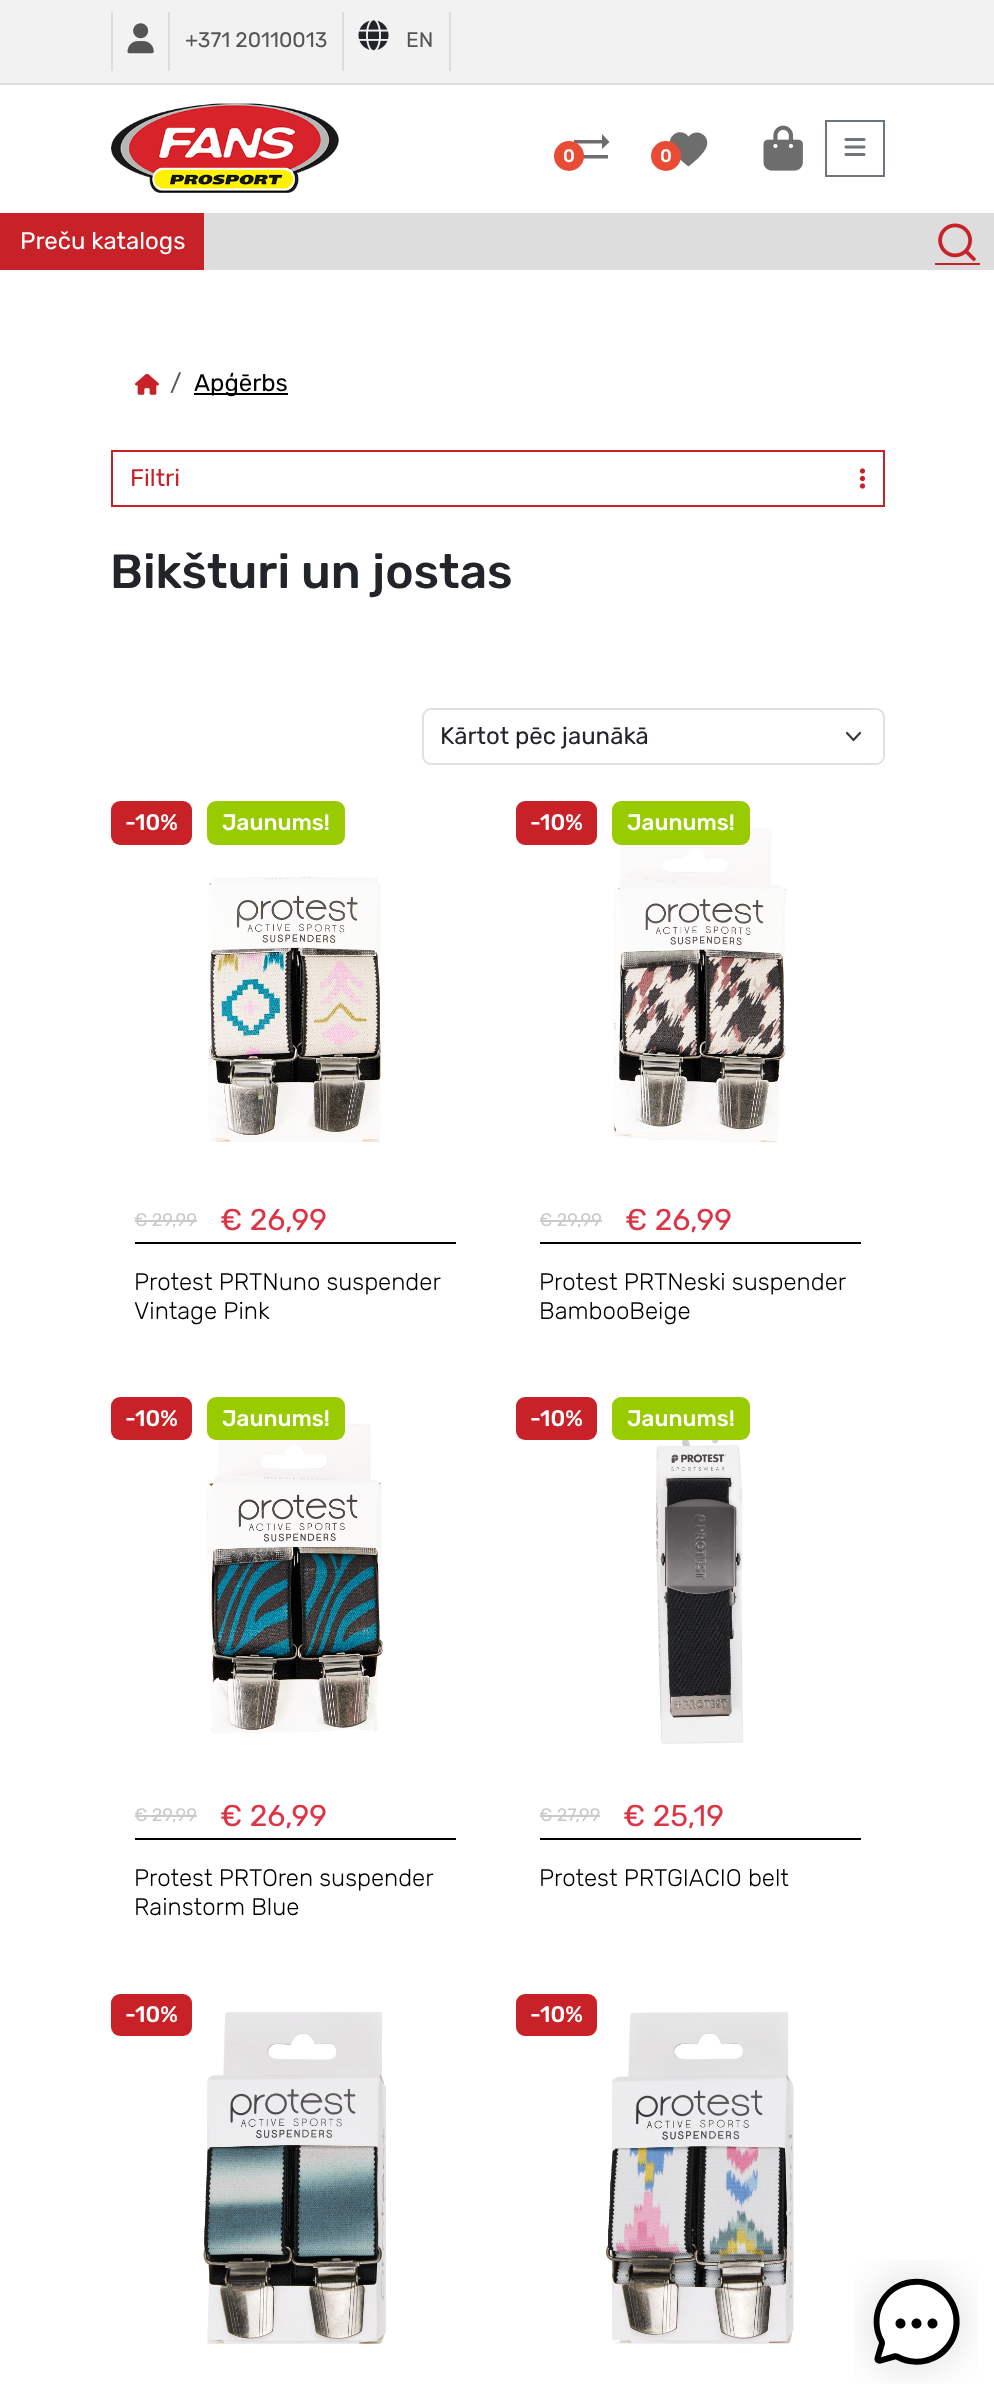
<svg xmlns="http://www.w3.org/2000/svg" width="994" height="2401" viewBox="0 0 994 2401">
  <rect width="100%" height="100%" fill="rgb(255,255,255)"/>
  <rect x="0" y="0" width="994" height="83" fill="rgb(242,242,242)"/>
  <rect x="0" y="83" width="994" height="2" fill="rgb(221,221,221)"/>
  <rect x="111" y="12" width="2" height="59" fill="rgb(221,221,221)"/>
  <image x="127" y="23" width="27" height="31" href="pic1.png"/>
  <rect x="168" y="12" width="2" height="59" fill="rgb(221,221,221)"/>
  <text x="185" y="47" font-family="Rubik" font-size="21" font-weight="300" fill="rgb(85,85,85)">+371 20110013</text>
  <rect x="449" y="12" width="2" height="59" fill="rgb(221,221,221)"/>
  <rect x="342" y="12" width="2" height="59" fill="rgb(221,221,221)"/>
  <image x="358" y="20" width="31" height="31" href="pic2.png"/>
  <text x="406" y="47" font-family="Rubik" font-size="21" font-weight="300" fill="rgb(85,85,85)">EN</text>
  <image x="111" y="103" width="228" height="90" href="pic3.png"/>
  <path d="M572.5 156.5L580 149V155H608V158.5H580V164.5ZM609.5 142L602 149V143.5H574V140H602V134Z" fill="rgb(109,109,109)"/>
  <circle cx="569" cy="156" r="15" fill="rgb(233,75,53)"/>
  <text x="563" y="162" font-family="'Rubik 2'" font-size="18" font-weight="300" fill="rgb(255,255,255)">0</text>
  <path d="M688.5 166.5C683 162 674 155 671 148C665.5 136.5 680 126 688.5 136.5C696.5 127 711 135.5 706.5 147C703 155 694.5 161.5 688.5 166.5Z" fill="rgb(109,109,109)"/>
  <circle cx="666" cy="156" r="15" fill="rgb(233,75,53)"/>
  <text x="660" y="162" font-family="'Rubik 2'" font-size="18" font-weight="300" fill="rgb(255,255,255)">0</text>
  <image x="763" y="125" width="40" height="46" href="pic4.png"/>
  <rect x="826" y="121" width="58" height="55" fill="none" stroke="rgb(108,117,125)" stroke-width="2"/>
  <image x="844" y="138" width="22" height="18" href="pic5.png"/>
  <rect x="204" y="213" width="790" height="57" fill="rgb(221,221,221)"/>
  <rect x="0" y="213" width="204" height="57" fill="rgb(200,33,40)"/>
  <text x="20" y="249" font-family="Rubik" font-size="24" font-weight="300" fill="rgb(255,255,255)">Preču katalogs</text>
  <image x="938" y="223" width="38" height="38" href="pic6.png"/>
  <rect x="935" y="263" width="45" height="2" fill="rgb(200,33,40)"/>
  <image x="135" y="374" width="24" height="21" href="pic7.png"/>
  <text x="170" y="391" font-family="Rubik" font-size="24" font-weight="300" fill="rgb(89,92,95)">/</text>
  <rect x="194" y="393" width="94" height="2" fill="rgb(0,0,0)"/>
  <text x="194" y="391" font-family="Rubik" font-size="24" font-weight="300" fill="rgb(0,0,0)">Apģērbs</text>
  <rect x="112" y="451" width="772" height="55" fill="none" stroke="rgb(200,33,40)" stroke-width="2"/>
  <text x="130" y="486" font-family="Rubik" font-size="24" font-weight="300" fill="rgb(200,33,40)">Filtri</text>
  <image x="859" y="468" width="7" height="21" href="pic8.png"/>
  <text x="110" y="588" font-family="'Rubik 2'" font-size="48" font-weight="300" fill="rgb(33,37,41)">Bikšturi un jostas</text>
  <path d="M847 733L853.5 740L860 733" fill="none" stroke="rgb(52,58,64)" stroke-width="2.2" stroke-linecap="round" stroke-linejoin="round"/>
  <rect x="423" y="709" width="461" height="55" rx="8" fill="none" stroke="rgb(222,226,230)" stroke-width="2"/>
  <text x="440" y="744" font-family="Rubik" font-size="24" font-weight="300" fill="rgb(33,37,41)">Kārtot pēc jaunākā</text>
  <rect x="111" y="801" width="81" height="44" rx="9" fill="rgb(200,33,40)"/>
  <text x="125" y="830" font-family="'Rubik 2'" font-size="22.5" font-weight="300" fill="rgb(255,255,255)">-10%</text>
  <rect x="207" y="801" width="138" height="44" rx="9" fill="rgb(153,204,0)"/>
  <text x="222" y="830" font-family="'Rubik 2'" font-size="22.5" font-weight="300" fill="rgb(255,255,255)">Jaunums!</text>
  <image x="208" y="877" width="173" height="265" href="pic9.png"/>
  <rect x="135" y="1242" width="321" height="2" fill="rgb(0,0,0)"/>
  <text x="134" y="1226" font-family="Rubik" font-size="18" font-weight="300" fill="rgb(202,202,202)">€ 29,99</text>
  <rect x="135" y="1220" width="62" height="2" fill="rgb(202,202,202)"/>
  <text x="220" y="1230" font-family="Rubik" font-size="30" font-weight="300" fill="rgb(220,53,69)">€ 26,99</text>
  <g font-family="'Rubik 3'" font-size="24" font-weight="300" fill="rgb(0,0,0)">
    <text>
      <tspan x="134" y="1290">Protest PRTNuno suspender</tspan>
      <tspan x="134" y="1319">Vintage Pink</tspan>
    </text>
  </g>
  <rect x="516" y="801" width="81" height="44" rx="9" fill="rgb(200,33,40)"/>
  <text x="530" y="830" font-family="'Rubik 2'" font-size="22.5" font-weight="300" fill="rgb(255,255,255)">-10%</text>
  <image x="613" y="828" width="174" height="315" href="pic10.png"/>
  <rect x="612" y="801" width="138" height="44" rx="9" fill="rgb(153,204,0)"/>
  <text x="627" y="830" font-family="'Rubik 2'" font-size="22.5" font-weight="300" fill="rgb(255,255,255)">Jaunums!</text>
  <rect x="540" y="1242" width="321" height="2" fill="rgb(0,0,0)"/>
  <text x="539" y="1226" font-family="Rubik" font-size="18" font-weight="300" fill="rgb(202,202,202)">€ 29,99</text>
  <rect x="540" y="1220" width="62" height="2" fill="rgb(202,202,202)"/>
  <text x="625" y="1230" font-family="Rubik" font-size="30" font-weight="300" fill="rgb(220,53,69)">€ 26,99</text>
  <g font-family="'Rubik 3'" font-size="24" font-weight="300" fill="rgb(0,0,0)">
    <text>
      <tspan x="539" y="1290">Protest PRTNeski suspender</tspan>
      <tspan x="539" y="1319">BambooBeige</tspan>
    </text>
  </g>
  <rect x="111" y="1397" width="81" height="43" rx="9" fill="rgb(200,33,40)"/>
  <text x="125" y="1426" font-family="'Rubik 2'" font-size="22.5" font-weight="300" fill="rgb(255,255,255)">-10%</text>
  <image x="206" y="1424" width="178" height="310" href="pic11.png"/>
  <rect x="207" y="1397" width="138" height="43" rx="9" fill="rgb(153,204,0)"/>
  <text x="222" y="1426" font-family="'Rubik 2'" font-size="22.5" font-weight="300" fill="rgb(255,255,255)">Jaunums!</text>
  <rect x="135" y="1838" width="321" height="2" fill="rgb(0,0,0)"/>
  <text x="134" y="1821" font-family="Rubik" font-size="18" font-weight="300" fill="rgb(202,202,202)">€ 29,99</text>
  <rect x="135" y="1815" width="62" height="2" fill="rgb(202,202,202)"/>
  <text x="220" y="1826" font-family="Rubik" font-size="30" font-weight="300" fill="rgb(220,53,69)">€ 26,99</text>
  <g font-family="'Rubik 3'" font-size="24" font-weight="300" fill="rgb(0,0,0)">
    <text>
      <tspan x="134" y="1886">Protest PRTOren suspender</tspan>
      <tspan x="134" y="1915">Rainstorm Blue</tspan>
    </text>
  </g>
  <rect x="516" y="1397" width="81" height="43" rx="9" fill="rgb(200,33,40)"/>
  <text x="530" y="1426" font-family="'Rubik 2'" font-size="22.5" font-weight="300" fill="rgb(255,255,255)">-10%</text>
  <rect x="612" y="1397" width="138" height="43" rx="9" fill="rgb(153,204,0)"/>
  <text x="627" y="1426" font-family="'Rubik 2'" font-size="22.5" font-weight="300" fill="rgb(255,255,255)">Jaunums!</text>
  <image x="656" y="1440" width="88" height="304" href="pic12.png"/>
  <rect x="540" y="1838" width="321" height="2" fill="rgb(0,0,0)"/>
  <text x="539" y="1821" font-family="Rubik" font-size="18" font-weight="300" fill="rgb(202,202,202)">€ 27,99</text>
  <rect x="540" y="1815" width="60" height="2" fill="rgb(202,202,202)"/>
  <text x="623" y="1826" font-family="Rubik" font-size="30" font-weight="300" fill="rgb(220,53,69)">€ 25,19</text>
  <text x="539" y="1886" font-family="'Rubik 3'" font-size="24" font-weight="300" fill="rgb(0,0,0)">Protest PRTGIACIO belt</text>
  <rect x="111" y="1994" width="81" height="42" rx="9" fill="rgb(200,33,40)"/>
  <text x="125" y="2022" font-family="'Rubik 2'" font-size="22.5" font-weight="300" fill="rgb(255,255,255)">-10%</text>
  <image x="203" y="2012" width="183" height="332" href="pic13.png"/>
  <rect x="516" y="1994" width="81" height="42" rx="9" fill="rgb(200,33,40)"/>
  <text x="530" y="2022" font-family="'Rubik 2'" font-size="22.5" font-weight="300" fill="rgb(255,255,255)">-10%</text>
  <image x="606" y="2012" width="188" height="332" href="pic14.png"/>
  <image x="854" y="2260" width="124" height="124" href="pic15.png"/>
</svg>
